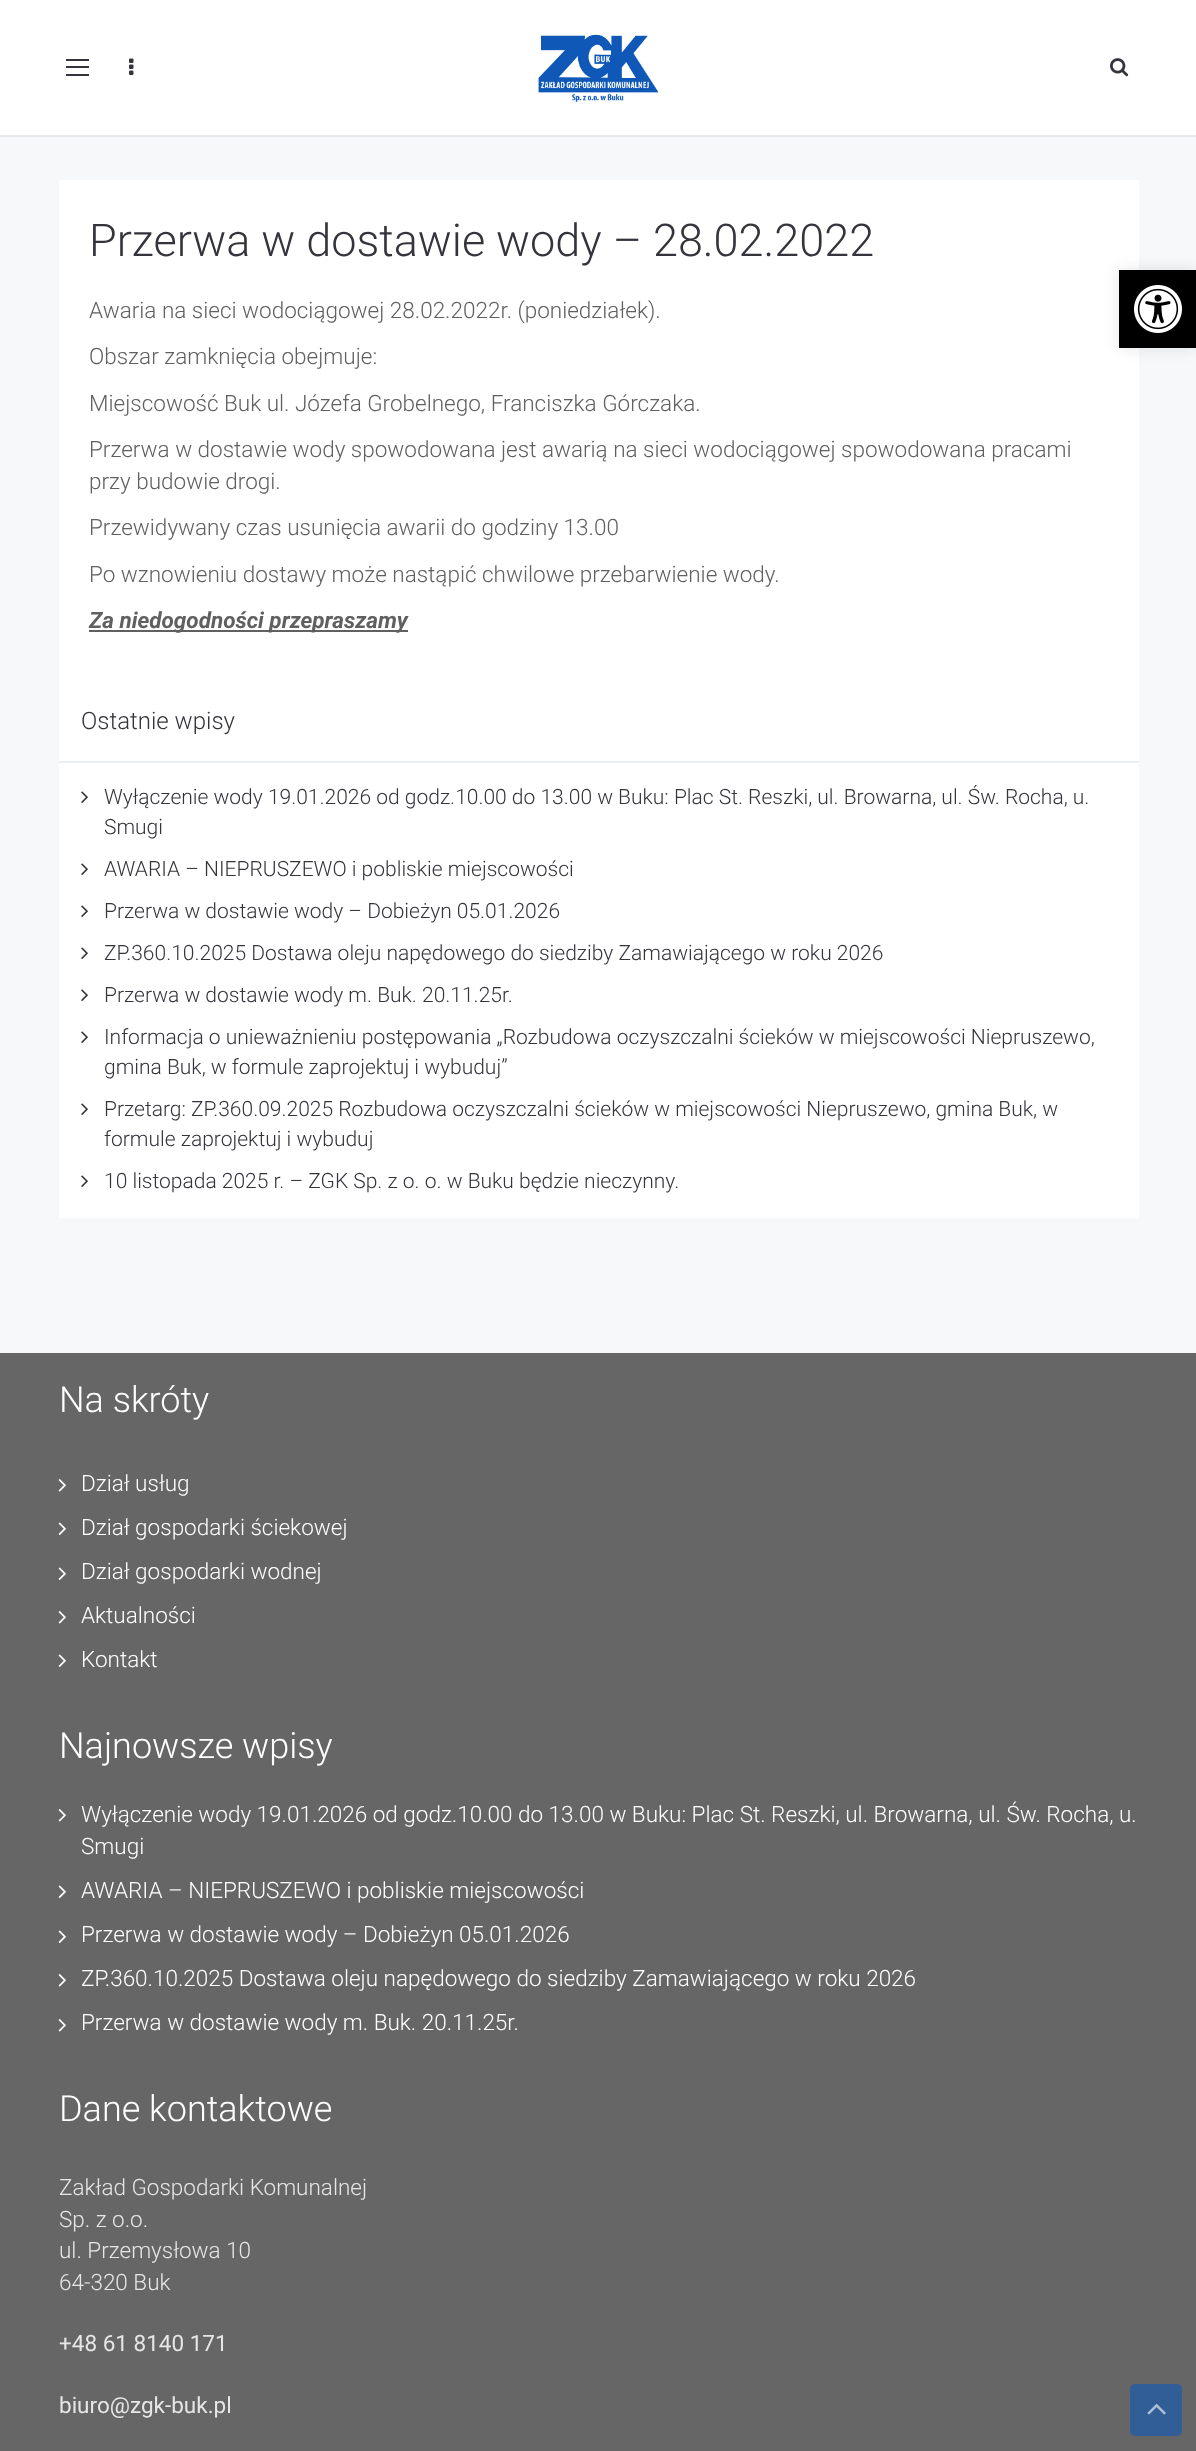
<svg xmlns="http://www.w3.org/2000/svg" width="1196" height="2451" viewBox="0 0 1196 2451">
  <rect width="100%" height="100%" fill="rgb(247,248,250)"/>
  <rect x="0" y="0" width="1196" height="135" fill="rgb(255,255,255)"/>
  <rect x="0" y="135" width="1196" height="2" fill="rgb(232,232,236)"/>
  <rect x="66" y="74" width="23" height="2" fill="rgb(52,52,60)"/>
  <rect x="66" y="59" width="23" height="2" fill="rgb(52,52,60)"/>
  <rect x="66" y="66" width="23" height="2" fill="rgb(52,52,60)"/>
  <image x="129" y="58" width="5" height="17" href="pic1.png"/>
  <image x="538" y="34" width="121" height="68" href="pic2.png"/>
  <image x="1110" y="58" width="19" height="19" href="pic3.png"/>
  <rect x="59" y="180" width="1080" height="1038" fill="rgb(255,255,255)"/>
  <text x="89" y="256" font-family="Roboto" font-size="45" font-weight="300" fill="rgb(52,52,60)">Przerwa w dostawie wody – 28.02.2022</text>
  <g font-family="Roboto" font-size="22.5" font-weight="300" fill="rgb(96,96,96)">
    <text x="89" y="318">Awaria na sieci wodociągowej 28.02.2022r. (poniedziałek).</text>
    <text x="89" y="364">Obszar zamknięcia obejmuje:</text>
    <text x="89" y="411">Miejscowość Buk ul. Józefa Grobelnego, Franciszka Górczaka.</text>
    <text>
      <tspan x="89" y="457">Przerwa w dostawie wody spowodowana jest awarią na sieci wodociągowej spowodowana pracami</tspan>
      <tspan x="89" y="489">przy budowie drogi.</tspan>
    </text>
    <text x="89" y="535">Przewidywany czas usunięcia awarii do godziny 13.00</text>
    <text x="89" y="582">Po wznowieniu dostawy może nastąpić chwilowe przebarwienie wody.</text>
  </g>
  <rect x="89" y="630" width="319" height="2" fill="rgb(96,96,96)"/>
  <text x="89" y="628" font-family="Roboto" font-size="22.5" font-weight="bold" font-style="italic" fill="rgb(96,96,96)">Za niedogodności przepraszamy</text>
  <rect x="59" y="761" width="1080" height="2" fill="rgb(235,238,246)"/>
  <text x="81" y="729" font-family="Roboto" font-size="24" font-weight="300" fill="rgb(52,52,60)">Ostatnie wpisy</text>
  <image x="81" y="791" width="7" height="12" href="pic4.png"/>
  <g font-family="Roboto" font-size="21" font-weight="300" fill="rgb(52,52,60)">
    <text>
      <tspan x="104" y="804">Wyłączenie wody 19.01.2026 od godz.10.00 do 13.00 w Buku: Plac St. Reszki, ul. Browarna, ul. Św. Rocha, u.</tspan>
      <tspan x="104" y="834">Smugi</tspan>
    </text>
  </g>
  <image x="81" y="863" width="7" height="12" href="pic4.png"/>
  <text x="104" y="876" font-family="Roboto" font-size="21" font-weight="300" fill="rgb(52,52,60)">AWARIA – NIEPRUSZEWO i pobliskie miejscowości</text>
  <image x="81" y="905" width="7" height="12" href="pic4.png"/>
  <text x="104" y="918" font-family="Roboto" font-size="21" font-weight="300" fill="rgb(52,52,60)">Przerwa w dostawie wody – Dobieżyn 05.01.2026</text>
  <image x="81" y="947" width="7" height="12" href="pic4.png"/>
  <text x="104" y="960" font-family="Roboto" font-size="21" font-weight="300" fill="rgb(52,52,60)">ZP.360.10.2025 Dostawa oleju napędowego do siedziby Zamawiającego w roku 2026</text>
  <image x="81" y="989" width="7" height="12" href="pic4.png"/>
  <text x="104" y="1002" font-family="Roboto" font-size="21" font-weight="300" fill="rgb(52,52,60)">Przerwa w dostawie wody m. Buk. 20.11.25r.</text>
  <image x="81" y="1031" width="7" height="12" href="pic4.png"/>
  <g font-family="Roboto" font-size="21" font-weight="300" fill="rgb(52,52,60)">
    <text>
      <tspan x="104" y="1044">Informacja o unieważnieniu postępowania „Rozbudowa oczyszczalni ścieków w miejscowości Niepruszewo,</tspan>
      <tspan x="104" y="1074">gmina Buk, w formule zaprojektuj i wybuduj”</tspan>
    </text>
  </g>
  <image x="81" y="1103" width="7" height="12" href="pic4.png"/>
  <g font-family="Roboto" font-size="21" font-weight="300" fill="rgb(52,52,60)">
    <text>
      <tspan x="104" y="1116">Przetarg: ZP.360.09.2025 Rozbudowa oczyszczalni ścieków w miejscowości Niepruszewo, gmina Buk, w</tspan>
      <tspan x="104" y="1146">formule zaprojektuj i wybuduj</tspan>
    </text>
  </g>
  <image x="81" y="1175" width="7" height="12" href="pic4.png"/>
  <text x="104" y="1188" font-family="Roboto" font-size="21" font-weight="300" fill="rgb(52,52,60)">10 listopada 2025 r. – ZGK Sp. z o. o. w Buku będzie nieczynny.</text>
  <rect x="0" y="1353" width="1196" height="1098" fill="rgb(102,102,102)"/>
  <text x="59" y="1412" font-family="Roboto" font-size="36" font-weight="300" fill="rgb(255,255,255)">Na skróty</text>
  <image x="58" y="1479" width="8" height="13" href="pic5.png"/>
  <text x="81" y="1491" font-family="Roboto" font-size="22.5" font-weight="300" fill="rgb(255,255,255)">Dział usług</text>
  <image x="58" y="1522" width="8" height="13" href="pic6.png"/>
  <text x="81" y="1535" font-family="Roboto" font-size="22.5" font-weight="300" fill="rgb(255,255,255)">Dział gospodarki ściekowej</text>
  <image x="58" y="1567" width="8" height="13" href="pic6.png"/>
  <text x="81" y="1579" font-family="Roboto" font-size="22.5" font-weight="300" fill="rgb(255,255,255)">Dział gospodarki wodnej</text>
  <image x="58" y="1611" width="8" height="13" href="pic5.png"/>
  <text x="81" y="1623" font-family="Roboto" font-size="22.5" font-weight="300" fill="rgb(255,255,255)">Aktualności</text>
  <image x="58" y="1654" width="8" height="13" href="pic6.png"/>
  <text x="81" y="1667" font-family="Roboto" font-size="22.5" font-weight="300" fill="rgb(255,255,255)">Kontakt</text>
  <text x="59" y="1758" font-family="Roboto" font-size="36" font-weight="300" fill="rgb(255,255,255)">Najnowsze wpisy</text>
  <image x="58" y="1809" width="8" height="13" href="pic5.png"/>
  <g font-family="Roboto" font-size="22.5" font-weight="300" fill="rgb(255,255,255)">
    <text>
      <tspan x="81" y="1822">Wyłączenie wody 19.01.2026 od godz.10.00 do 13.00 w Buku: Plac St. Reszki, ul. Browarna, ul. Św. Rocha, u.</tspan>
      <tspan x="81" y="1854">Smugi</tspan>
    </text>
  </g>
  <image x="58" y="1885" width="8" height="13" href="pic6.png"/>
  <text x="81" y="1898" font-family="Roboto" font-size="22.5" font-weight="300" fill="rgb(255,255,255)">AWARIA – NIEPRUSZEWO i pobliskie miejscowości</text>
  <image x="58" y="1930" width="8" height="13" href="pic6.png"/>
  <text x="81" y="1942" font-family="Roboto" font-size="22.5" font-weight="300" fill="rgb(255,255,255)">Przerwa w dostawie wody – Dobieżyn 05.01.2026</text>
  <image x="58" y="1974" width="8" height="13" href="pic5.png"/>
  <text x="81" y="1986" font-family="Roboto" font-size="22.5" font-weight="300" fill="rgb(255,255,255)">ZP.360.10.2025 Dostawa oleju napędowego do siedziby Zamawiającego w roku 2026</text>
  <image x="58" y="2019" width="8" height="13" href="pic5.png"/>
  <text x="81" y="2030" font-family="Roboto" font-size="22.5" font-weight="300" fill="rgb(255,255,255)">Przerwa w dostawie wody m. Buk. 20.11.25r.</text>
  <text x="59" y="2121" font-family="Roboto" font-size="36" font-weight="300" fill="rgb(255,255,255)">Dane kontaktowe</text>
  <g font-family="Roboto" font-size="22.5" font-weight="300" fill="rgb(230,230,230)">
    <text>
      <tspan x="59" y="2195">Zakład Gospodarki Komunalnej</tspan>
      <tspan x="59" y="2227">Sp. z o.o.</tspan>
      <tspan x="59" y="2258">ul. Przemysłowa 10</tspan>
      <tspan x="59" y="2290">64-320 Buk</tspan>
    </text>
  </g>
  <g font-family="Roboto" font-size="22.5" fill="rgb(230,230,230)">
    <text x="59" y="2351">+48 61 8140 171</text>
    <text x="59" y="2413">biuro@zgk-buk.pl</text>
  </g>
  <rect x="1119" y="270" width="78" height="78" fill="rgba(0,0,0,0.1)" filter="blur(7.5px)"/>
  <rect x="1119" y="270" width="77" height="78" fill="rgb(0,0,0)"/>
  <image x="1134" y="285" width="48" height="48" href="pic7.png"/>
  <rect x="1130" y="2384" width="52" height="52" rx="5" fill="rgb(50,94,151)"/>
  <image x="1147" y="2403" width="19" height="12" href="pic8.png"/>
</svg>
